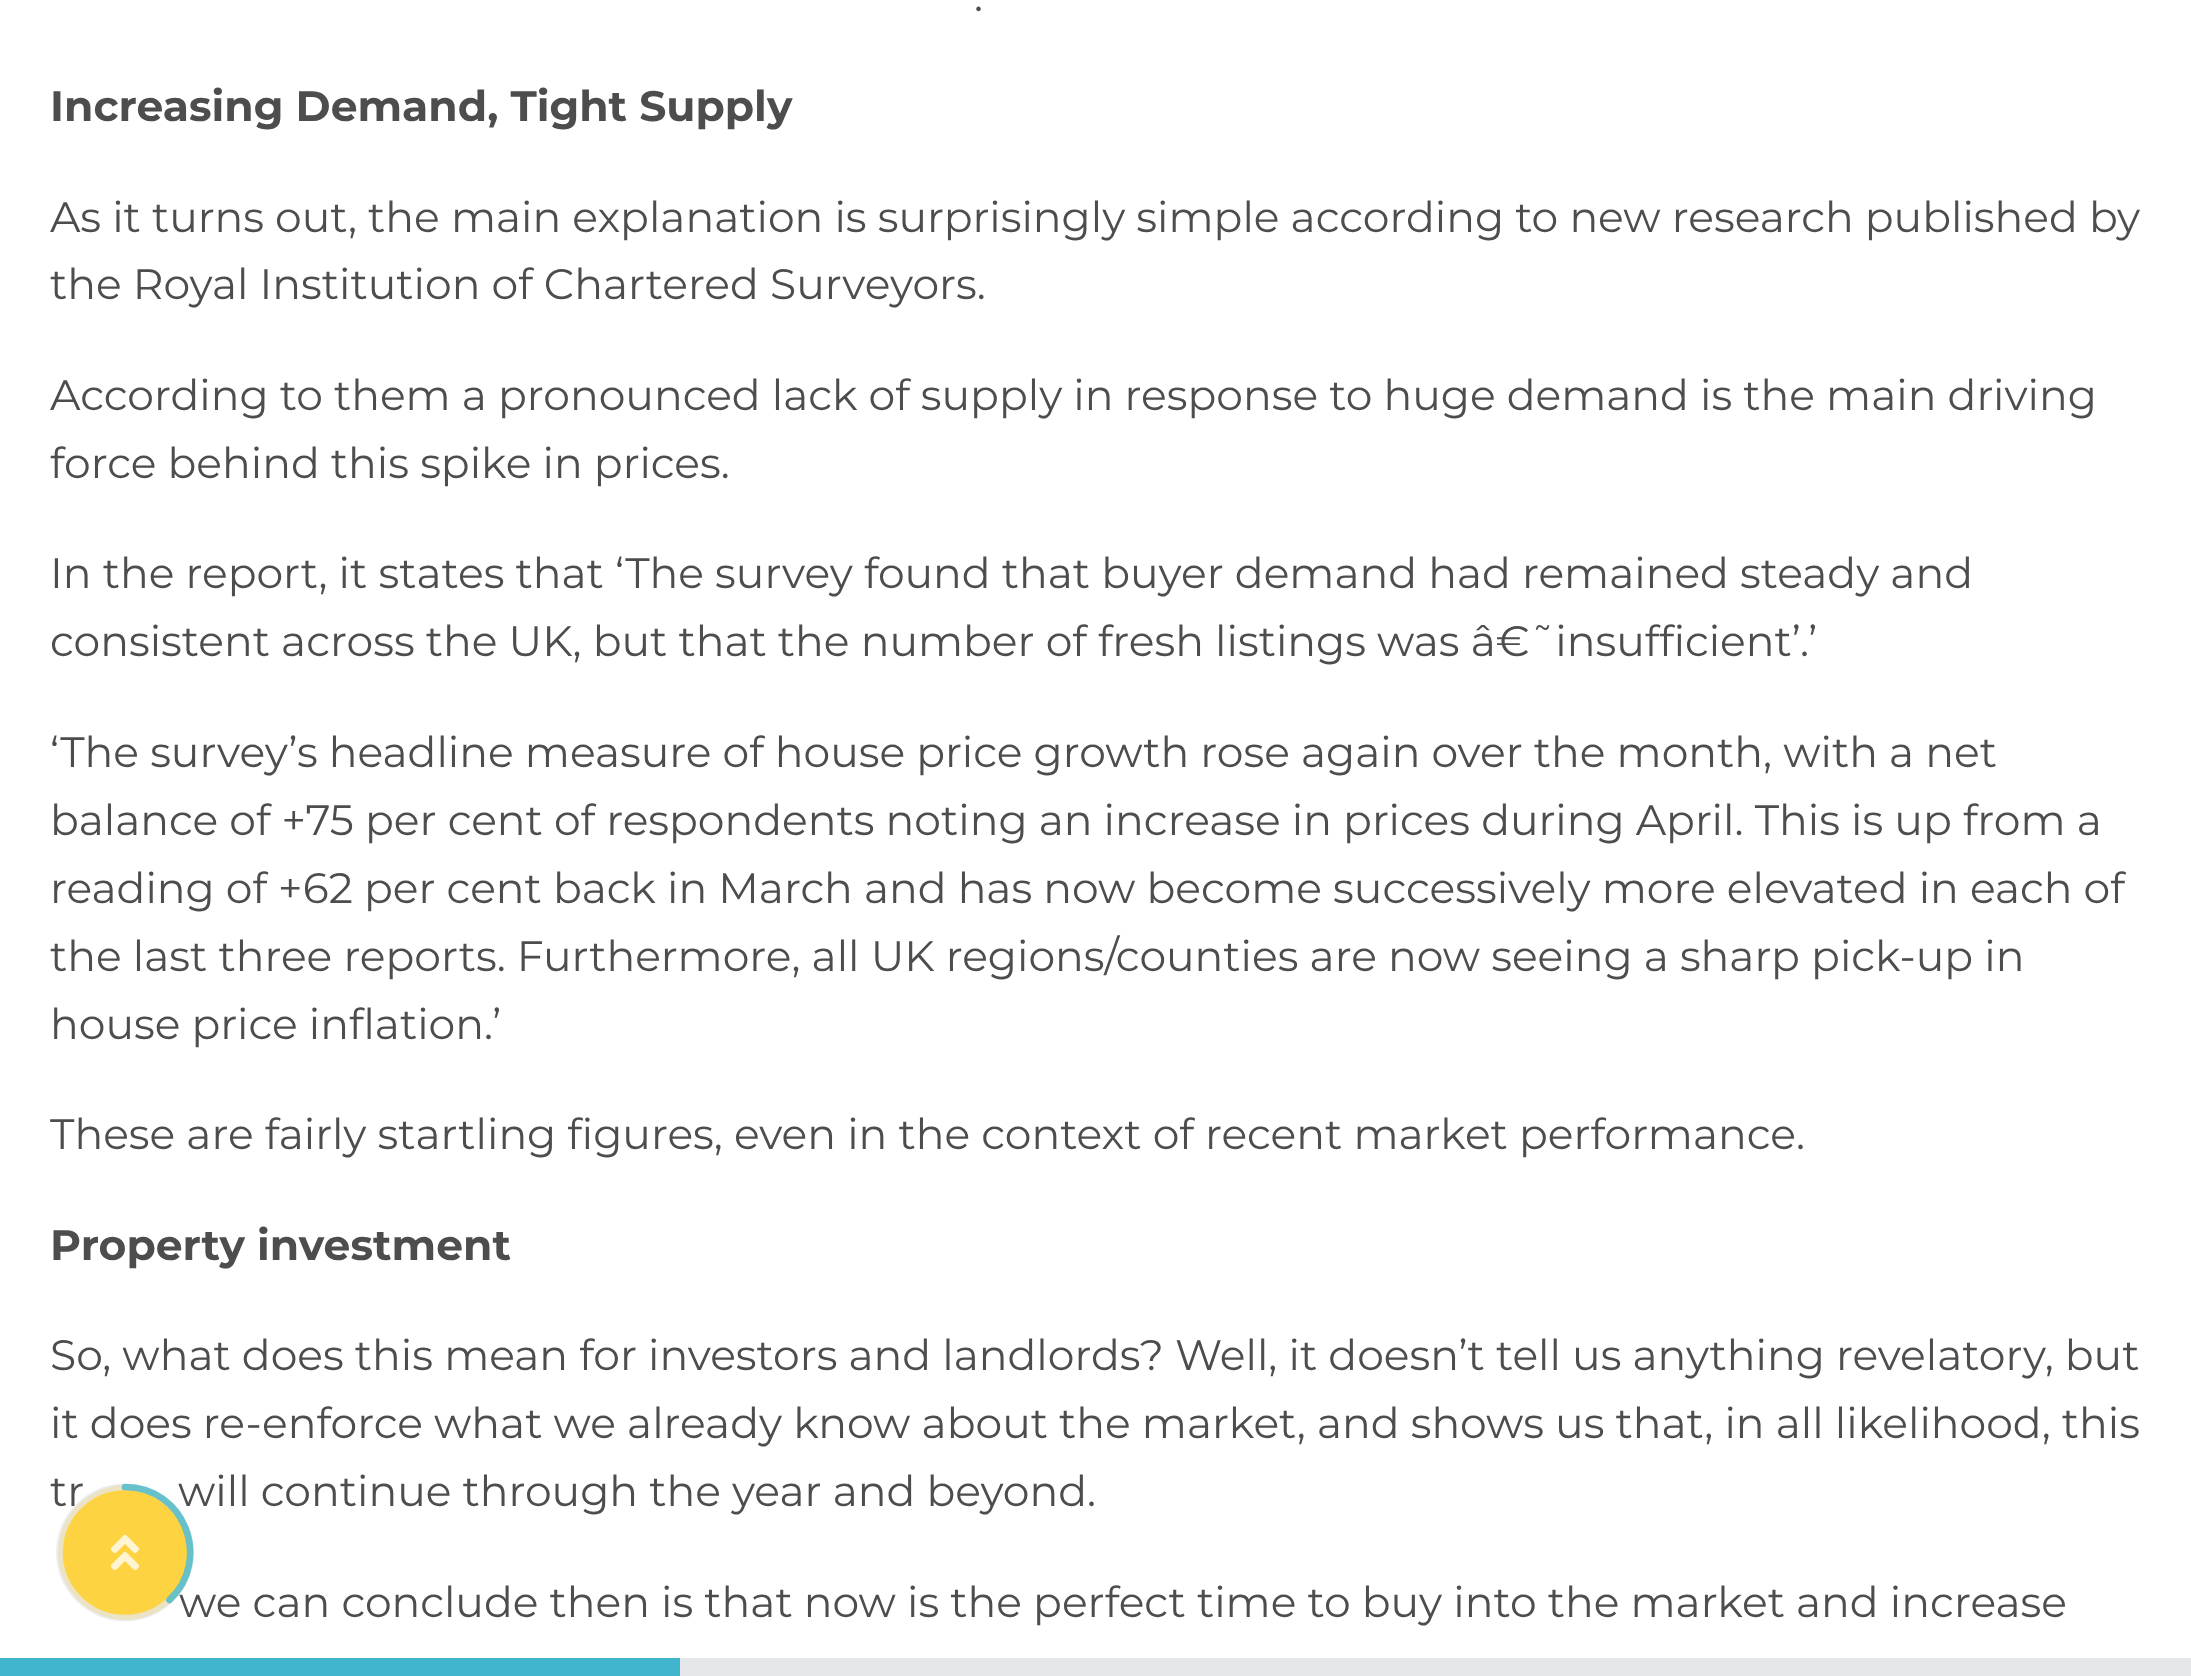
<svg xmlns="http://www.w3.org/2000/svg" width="2191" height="1676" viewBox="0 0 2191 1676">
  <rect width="100%" height="100%" fill="rgb(255,255,255)"/>
  <text x="974" y="11" font-family="Montserrat" font-size="42.5" fill="rgb(77,77,77)">.</text>
  <text x="50" y="121" font-family="Montserrat" font-size="42.5" font-weight="bold" fill="rgb(77,77,77)">Increasing Demand, Tight Supply</text>
  <g font-family="Montserrat" font-size="42.5" fill="rgb(77,77,77)">
    <text>
      <tspan x="50" y="232">As it turns out, the main explanation is surprisingly simple according to new research published by</tspan>
      <tspan x="50" y="299">the Royal Institution of Chartered Surveyors.</tspan>
    </text>
    <text>
      <tspan x="50" y="410">According to them a pronounced lack of supply in response to huge demand is the main driving</tspan>
      <tspan x="50" y="478">force behind this spike in prices.</tspan>
    </text>
    <text>
      <tspan x="50" y="588">In the report, it states that ‘The survey found that buyer demand had remained steady and</tspan>
      <tspan x="50" y="656">consistent across the UK, but that the number of fresh listings was â€˜insufficient’.’</tspan>
    </text>
    <text>
      <tspan x="50" y="767">‘The survey’s headline measure of house price growth rose again over the month, with a net</tspan>
      <tspan x="50" y="835">balance of +75 per cent of respondents noting an increase in prices during April. This is up from a</tspan>
      <tspan x="50" y="903">reading of +62 per cent back in March and has now become successively more elevated in each of</tspan>
      <tspan x="50" y="971">the last three reports. Furthermore, all UK regions/counties are now seeing a sharp pick-up in</tspan>
      <tspan x="50" y="1039">house price inflation.’</tspan>
    </text>
    <text x="50" y="1149">These are fairly startling figures, even in the context of recent market performance.</text>
  </g>
  <text x="50" y="1260" font-family="Montserrat" font-size="42.5" font-weight="bold" fill="rgb(77,77,77)">Property investment</text>
  <g font-family="Montserrat" font-size="42.5" fill="rgb(77,77,77)">
    <text>
      <tspan x="50" y="1370">So, what does this mean for investors and landlords? Well, it doesn’t tell us anything revelatory, but</tspan>
      <tspan x="50" y="1438">it does re-enforce what we already know about the market, and shows us that, in all likelihood, this</tspan>
      <tspan x="50" y="1506">tr</tspan>
    </text>
    <text x="178" y="1506">will continue through the year and beyond.</text>
    <text x="179" y="1617">we can conclude then is that now is the perfect time to buy into the market and increase</text>
  </g>
  <circle cx="125.5" cy="1552.5" r="67.5" fill="rgba(253,198,8,0.77)"/>
  <image x="110" y="1534" width="30" height="37" href="pic1.png"/>
  <path d="M125 1487C161 1487 190.5 1516.5 190.5 1552.5C190.5 1588.5 161 1618 125 1618C89 1618 59.5 1588.5 59.5 1552.5C59.5 1516.5 89 1487 125 1487" fill="none" stroke="rgba(229,231,235,0.77)" stroke-width="6.7" stroke-linecap="round"/>
  <path d="M125 1487C185 1487 212 1560.5 169.5 1600" fill="none" stroke="rgba(64,181,203,0.77)" stroke-width="6.7" stroke-linecap="round"/>
  <rect x="680" y="1658" width="1511" height="18" fill="rgb(229,231,235)"/>
  <rect x="0" y="1658" width="680" height="18" fill="rgb(64,181,203)"/>
</svg>
